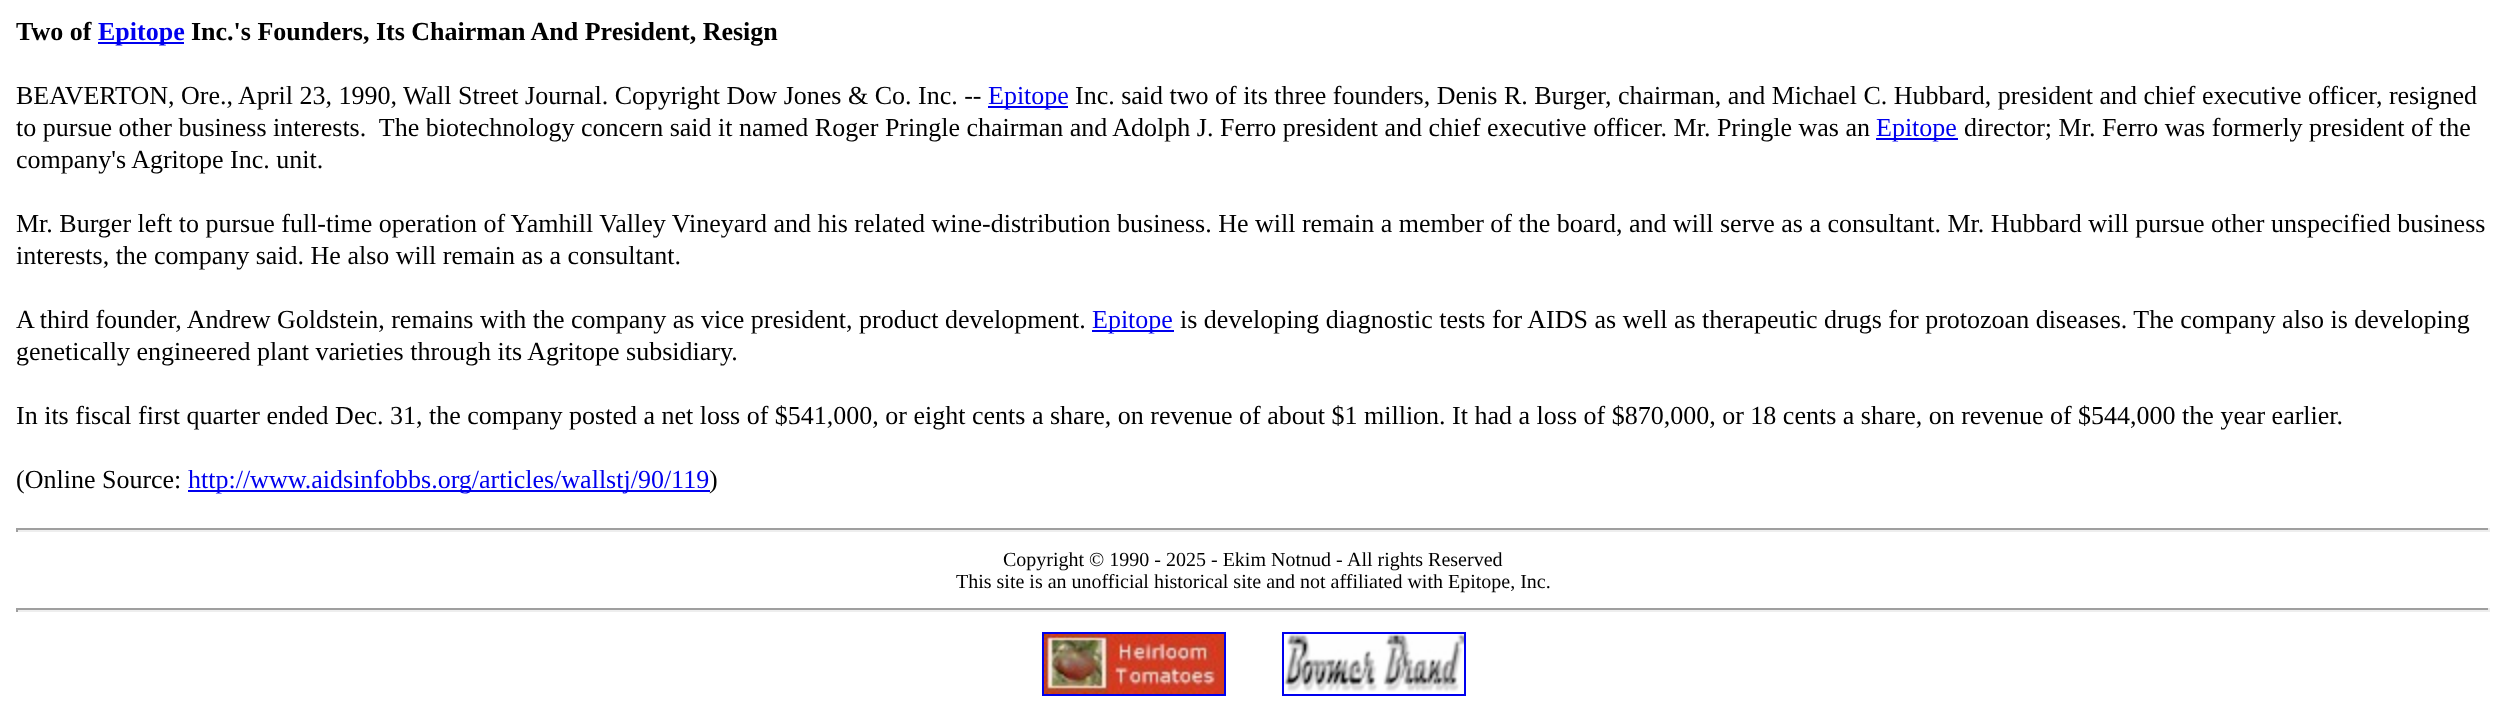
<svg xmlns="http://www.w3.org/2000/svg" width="2506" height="704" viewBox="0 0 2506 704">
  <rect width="100%" height="100%" fill="rgb(255,255,255)"/>
  <text x="16" y="40" font-family="Liberation Serif" font-size="26" font-weight="bold" fill="rgb(0,0,0)">Two of</text>
  <rect x="98" y="42" width="86" height="2" fill="rgb(0,0,238)"/>
  <text x="98" y="40" font-family="Liberation Serif" font-size="26" font-weight="bold" fill="rgb(0,0,238)">Epitope</text>
  <text x="191" y="40" font-family="Liberation Serif" font-size="26" font-weight="bold" fill="rgb(0,0,0)">Inc.'s Founders, Its Chairman And President, Resign</text>
  <text x="16" y="104" font-family="Liberation Serif" font-size="26" fill="rgb(0,0,0)">BEAVERTON, Ore., April 23, 1990, Wall Street Journal. Copyright Dow Jones &amp; Co. Inc. --</text>
  <rect x="988" y="106" width="80" height="2" fill="rgb(0,0,238)"/>
  <text x="988" y="104" font-family="Liberation Serif" font-size="26" fill="rgb(0,0,238)">Epitope</text>
  <g font-family="Liberation Serif" font-size="26" fill="rgb(0,0,0)">
    <text x="1075" y="104">Inc. said two of its three founders, Denis R. Burger, chairman, and Michael C. Hubbard, president and chief executive officer, resigned</text>
    <text x="16" y="136" xml:space="preserve">to pursue other business interests.  The biotechnology concern said it named Roger Pringle chairman and Adolph J. Ferro president and chief executive officer. Mr. Pringle was an</text>
  </g>
  <rect x="1876" y="138" width="82" height="2" fill="rgb(0,0,238)"/>
  <text x="1876" y="136" font-family="Liberation Serif" font-size="26" fill="rgb(0,0,238)">Epitope</text>
  <g font-family="Liberation Serif" font-size="26" fill="rgb(0,0,0)">
    <text x="1964" y="136">director; Mr. Ferro was formerly president of the</text>
    <text x="16" y="168">company's Agritope Inc. unit.</text>
    <text>
      <tspan x="16" y="232">Mr. Burger left to pursue full-time operation of Yamhill Valley Vineyard and his related wine-distribution business. He will remain a member of the board, and will serve as a consultant. Mr. Hubbard will pursue other unspecified business</tspan>
      <tspan x="16" y="264">interests, the company said. He also will remain as a consultant.</tspan>
    </text>
    <text x="16" y="328">A third founder, Andrew Goldstein, remains with the company as vice president, product development.</text>
  </g>
  <rect x="1092" y="330" width="82" height="2" fill="rgb(0,0,238)"/>
  <text x="1092" y="328" font-family="Liberation Serif" font-size="26" fill="rgb(0,0,238)">Epitope</text>
  <g font-family="Liberation Serif" font-size="26" fill="rgb(0,0,0)">
    <text x="1180" y="328">is developing diagnostic tests for AIDS as well as therapeutic drugs for protozoan diseases. The company also is developing</text>
    <text x="16" y="360">genetically engineered plant varieties through its Agritope subsidiary.</text>
    <text x="16" y="424">In its fiscal first quarter ended Dec. 31, the company posted a net loss of $541,000, or eight cents a share, on revenue of about $1 million. It had a loss of $870,000, or 18 cents a share, on revenue of $544,000 the year earlier.</text>
    <text x="16" y="488">(Online Source:</text>
  </g>
  <rect x="188" y="490" width="522" height="2" fill="rgb(0,0,238)"/>
  <text x="188" y="488" font-family="Liberation Serif" font-size="26" fill="rgb(0,0,238)">http://www.aidsinfobbs.org/articles/wallstj/90/119</text>
  <text x="709" y="488" font-family="Liberation Serif" font-size="26" fill="rgb(0,0,0)">)</text>
  <rect x="16" y="528" width="2474" height="2" fill="rgb(159,159,159)"/>
  <rect x="2488" y="528" width="2" height="4" fill="rgb(238,238,238)"/>
  <rect x="16" y="530" width="2474" height="2" fill="rgb(238,238,238)"/>
  <rect x="16" y="528" width="2" height="4" fill="rgb(159,159,159)"/>
  <g font-family="Liberation Serif" font-size="20" fill="rgb(0,0,0)">
    <text x="1003" y="566">Copyright © 1990 - 2025 - Ekim Notnud -</text>
    <text x="1347" y="566">All rights Reserved</text>
    <text x="956" y="588">This site is an unofficial historical site and not affiliated with Epitope, Inc.</text>
  </g>
  <rect x="16" y="608" width="2474" height="2" fill="rgb(159,159,159)"/>
  <rect x="2488" y="608" width="2" height="4" fill="rgb(238,238,238)"/>
  <rect x="16" y="610" width="2474" height="2" fill="rgb(238,238,238)"/>
  <rect x="16" y="608" width="2" height="4" fill="rgb(159,159,159)"/>
  <rect x="1043" y="633" width="182" height="62" fill="none" stroke="rgb(0,0,238)" stroke-width="2"/>
  <image x="1044" y="634" width="180" height="60" href="pic1.png"/>
  <rect x="1283" y="633" width="182" height="62" fill="none" stroke="rgb(0,0,238)" stroke-width="2"/>
  <image x="1284" y="634" width="180" height="58" href="pic2.png"/>
</svg>
